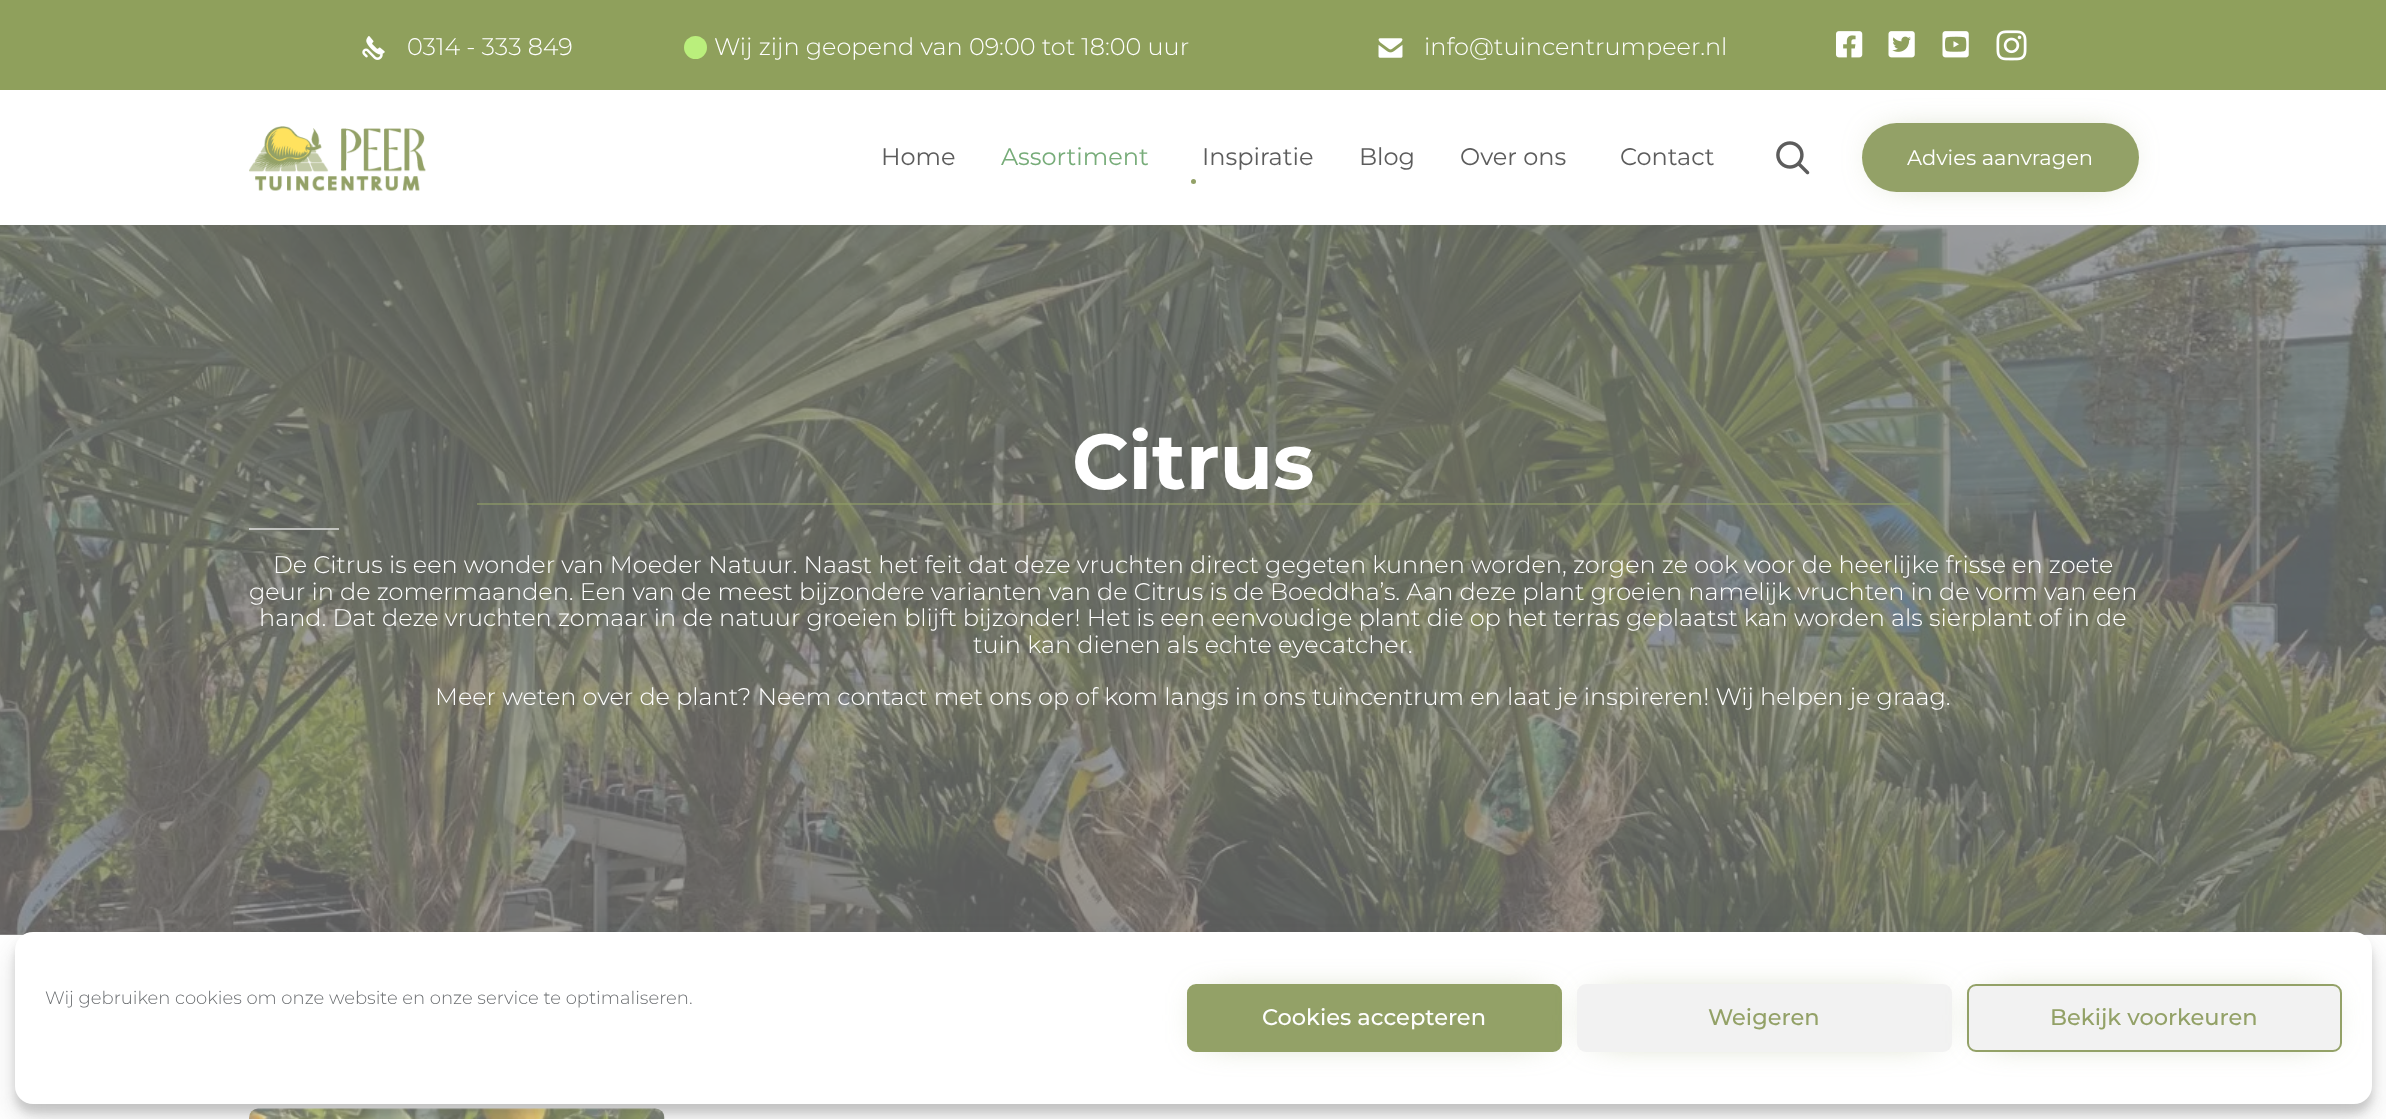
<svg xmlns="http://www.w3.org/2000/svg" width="2386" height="1119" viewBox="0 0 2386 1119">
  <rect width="100%" height="100%" fill="rgb(255,255,255)"/>
  <rect x="0" y="934" width="2386" height="1" fill="rgb(157,157,157)"/>
  <image x="0" y="225" width="2386" height="710" href="pic9.png"/>
  <rect x="1883" y="144" width="235" height="27" rx="13.5" fill="rgb(147,161,103)" filter="blur(19px)"/>
  <rect x="0" y="0" width="2386" height="90" fill="rgb(143,160,92)"/>
  <image x="362" y="36" width="23" height="24" href="pic1.png"/>
  <text x="407" y="55" font-family="Montserrat" font-size="24" font-weight="300" fill="rgb(255,255,255)">0314 - 333 849</text>
  <circle cx="695.5" cy="47.5" r="11.5" fill="rgb(186,239,124)"/>
  <text x="714" y="55" font-family="Montserrat" font-size="24" font-weight="300" fill="rgb(255,255,255)">Wij zijn geopend van 09:00 tot 18:00 uur</text>
  <image x="1378" y="38" width="25" height="20" href="pic2.png"/>
  <text x="1424" y="55" font-family="Montserrat" font-size="24" font-weight="300" fill="rgb(255,255,255)">info@tuincentrumpeer.nl</text>
  <image x="1836" y="31" width="27" height="27" href="pic3.png"/>
  <image x="1888" y="31" width="27" height="27" href="pic4.png"/>
  <image x="1942" y="31" width="27" height="27" href="pic5.png"/>
  <image x="1996" y="30" width="31" height="31" href="pic6.png"/>
  <image x="249" y="126" width="177" height="65" href="pic7.png"/>
  <text x="881" y="165" font-family="Montserrat" font-size="24" fill="rgb(92,92,92)">Home</text>
  <text x="1001" y="165" font-family="Montserrat" font-size="24" fill="rgb(119,172,121)">Assortiment</text>
  <circle cx="1193.5" cy="181.5" r="2.5" fill="rgb(147,161,103)"/>
  <g font-family="Montserrat" font-size="24" fill="rgb(92,92,92)">
    <text x="1202" y="165">Inspiratie</text>
    <text x="1359" y="165">Blog</text>
    <text x="1460" y="165">Over ons</text>
    <text x="1620" y="165">Contact</text>
  </g>
  <image x="1776" y="141" width="34" height="34" href="pic8.png"/>
  <rect x="1862" y="123" width="277" height="69" rx="34.5" fill="rgb(147,161,103)"/>
  <text x="1907" y="165" font-family="Montserrat" font-size="21" fill="rgb(255,255,255)">Advies aanvragen</text>
  <text x="1072" y="489" font-family="Montserrat" font-size="78" font-weight="bold" fill="rgb(255,255,255)">Citrus</text>
  <rect x="249" y="528" width="90" height="2" fill="rgba(230,230,230,0.7)"/>
  <g font-family="Montserrat" font-size="24" font-weight="300" fill="rgb(255,255,255)">
    <text x="273" y="573">De Citrus is een wonder van Moeder Natuur. Naast het feit dat deze vruchten direct gegeten kunnen worden, zorgen ze ook voor de heerlijke frisse en zoete</text>
    <text x="249" y="600">geur in de zomermaanden. Een van de meest bijzondere varianten van de Citrus is de Boeddha’s. Aan deze plant groeien namelijk vruchten in de vorm van een</text>
    <text x="259" y="626">hand. Dat deze vruchten zomaar in de natuur groeien blijft bijzonder! Het is een eenvoudige plant die op het terras geplaatst kan worden als sierplant of in de</text>
    <text x="973" y="653">tuin kan dienen als echte eyecatcher.</text>
    <text x="435" y="705">Meer weten over de plant? Neem contact met ons op of kom langs in ons tuincentrum en laat je inspireren! Wij helpen je graag.</text>
  </g>
  <image x="249" y="1108" width="416" height="11" href="pic10.png"/>
  <rect x="477" y="503" width="1433" height="2" fill="rgba(237,237,237,0.36)"/>
  <rect x="477" y="503" width="1433" height="2" fill="rgba(86,108,17,0.36)"/>
  <rect x="15" y="941" width="2357" height="172" rx="18" fill="rgba(92,92,92,0.23)" filter="blur(4.5px)"/>
  <rect x="15" y="947" width="2357" height="172" rx="18" fill="rgba(92,92,92,0.19)" filter="blur(15px)"/>
  <rect x="15" y="932" width="2357" height="172" rx="18" fill="rgb(255,255,255)"/>
  <text x="45" y="1004" font-family="Montserrat" font-size="18" font-weight="300" fill="rgb(108,111,114)">Wij gebruiken cookies om onze website en onze service te optimaliseren.</text>
  <rect x="1208" y="1005" width="333" height="26" fill="rgb(147,161,103)" filter="blur(19px)"/>
  <rect x="1188" y="985" width="373" height="66" rx="8" fill="rgb(147,161,103)" stroke="rgb(147,161,103)" stroke-width="2"/>
  <text x="1262" y="1025" font-family="Montserrat" font-size="22.5" font-weight="500" fill="rgb(255,255,255)">Cookies accepteren</text>
  <rect x="1598" y="1005" width="333" height="26" fill="rgb(147,161,103)" filter="blur(19px)"/>
  <rect x="1577" y="984" width="375" height="68" rx="9" fill="rgb(242,242,242)"/>
  <text x="1708" y="1025" font-family="Montserrat" font-size="22.5" font-weight="500" fill="rgb(147,161,103)">Weigeren</text>
  <rect x="1988" y="1005" width="333" height="26" fill="rgb(147,161,103)" filter="blur(19px)"/>
  <rect x="1968" y="985" width="373" height="66" rx="8" fill="rgb(242,242,242)" stroke="rgb(147,161,103)" stroke-width="2"/>
  <text x="2050" y="1025" font-family="Montserrat" font-size="22.5" font-weight="500" fill="rgb(147,161,103)">Bekijk voorkeuren</text>
</svg>
